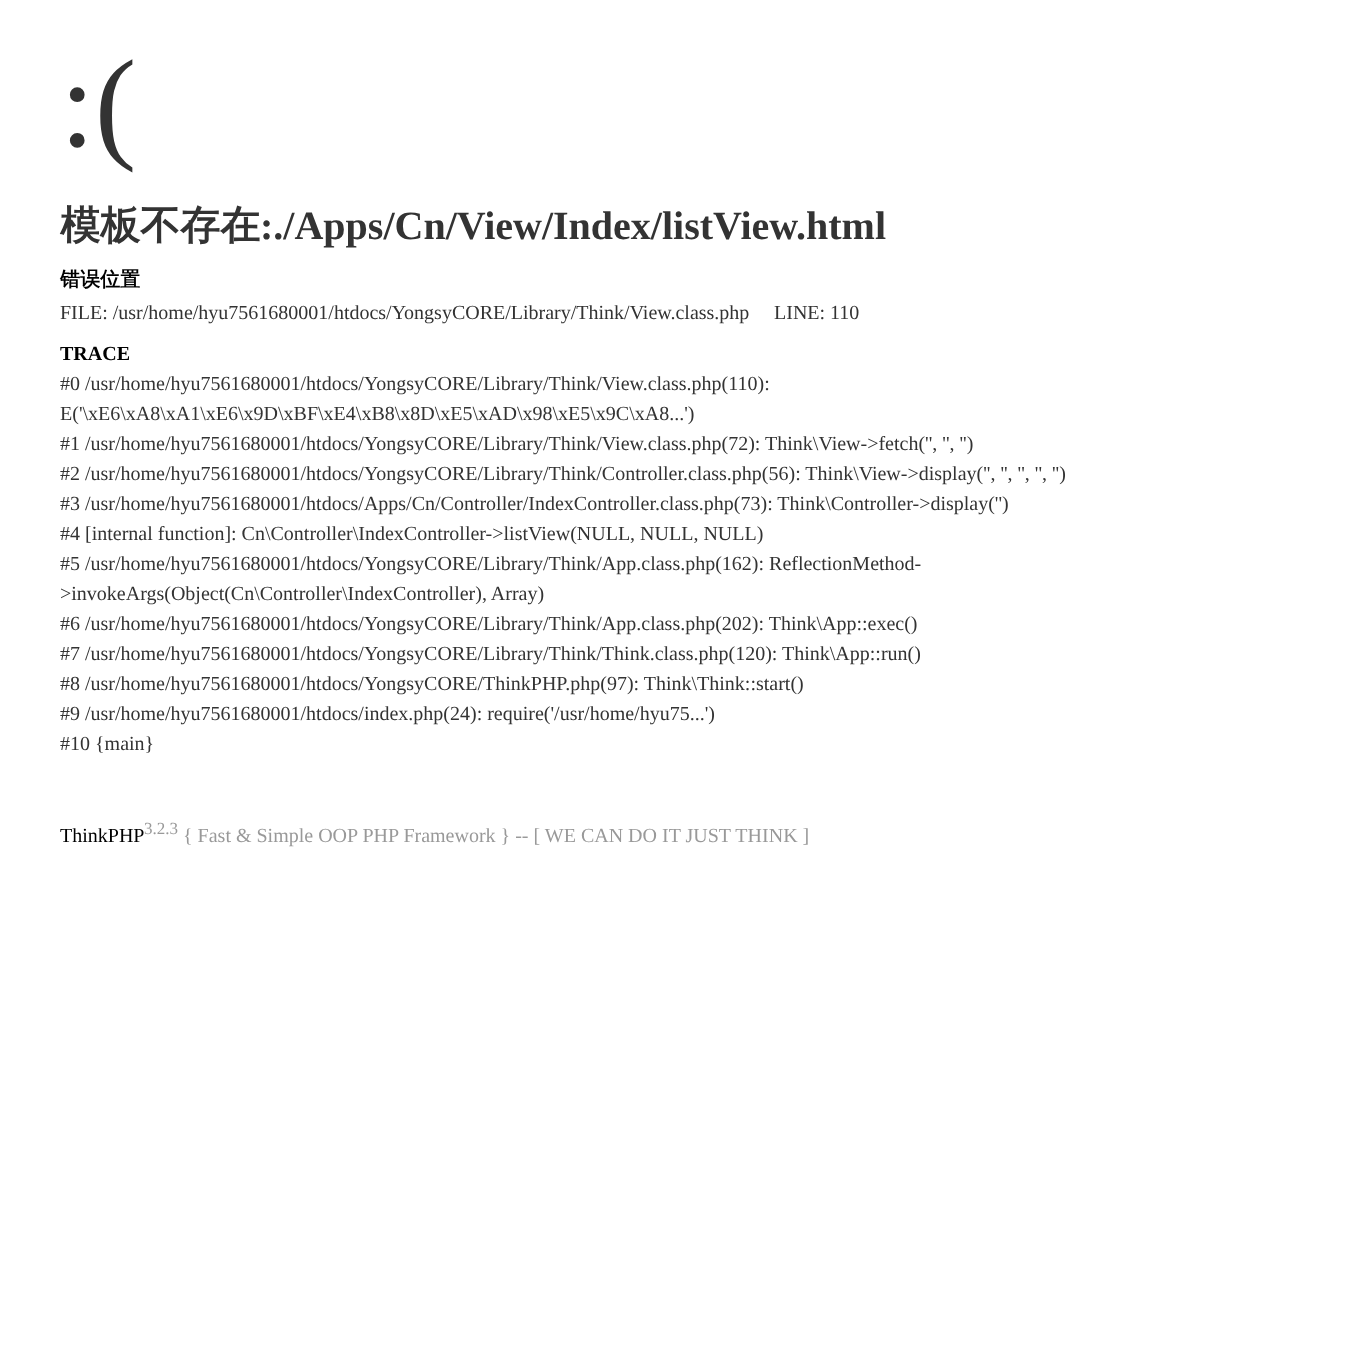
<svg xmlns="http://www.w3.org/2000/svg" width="1361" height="1364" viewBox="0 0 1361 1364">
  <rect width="100%" height="100%" fill="rgb(255,255,255)"/>
  <text x="60" y="146" font-family="Liberation Serif" font-size="125" fill="rgb(51,51,51)">:(</text>
  <text x="60" y="239" font-family="WenQuanYi Zen Hei" font-size="40" font-weight="bold" fill="rgb(51,51,51)">模板不存在</text>
  <text x="260" y="239" font-family="Liberation Serif" font-size="40" font-weight="bold" fill="rgb(51,51,51)">:./Apps/Cn/View/Index/listView.html</text>
  <text x="60" y="286" font-family="WenQuanYi Zen Hei" font-size="20" font-weight="bold" fill="rgb(0,0,0)">错误位置</text>
  <g font-family="Liberation Serif" font-size="20" fill="rgb(51,51,51)">
    <text x="60" y="319">FILE: /usr/home/hyu7561680001/htdocs/YongsyCORE/Library/Think/View.class.php</text>
    <text x="774" y="319">LINE: 110</text>
  </g>
  <text x="60" y="360" font-family="Liberation Serif" font-size="20" font-weight="bold" fill="rgb(0,0,0)">TRACE</text>
  <g font-family="Liberation Serif" font-size="20" fill="rgb(51,51,51)">
    <text>
      <tspan x="60" y="390">#0 /usr/home/hyu7561680001/htdocs/YongsyCORE/Library/Think/View.class.php(110):</tspan>
      <tspan x="60" y="420">E('\xE6\xA8\xA1\xE6\x9D\xBF\xE4\xB8\x8D\xE5\xAD\x98\xE5\x9C\xA8...')</tspan>
      <tspan x="60" y="450">#1 /usr/home/hyu7561680001/htdocs/YongsyCORE/Library/Think/View.class.php(72): Think\View-&gt;fetch('', '', '')</tspan>
      <tspan x="60" y="480">#2 /usr/home/hyu7561680001/htdocs/YongsyCORE/Library/Think/Controller.class.php(56): Think\View-&gt;display('', '', '', '', '')</tspan>
      <tspan x="60" y="510">#3 /usr/home/hyu7561680001/htdocs/Apps/Cn/Controller/IndexController.class.php(73): Think\Controller-&gt;display('')</tspan>
      <tspan x="60" y="540">#4 [internal function]: Cn\Controller\IndexController-&gt;listView(NULL, NULL, NULL)</tspan>
      <tspan x="60" y="570">#5 /usr/home/hyu7561680001/htdocs/YongsyCORE/Library/Think/App.class.php(162): ReflectionMethod-</tspan>
      <tspan x="60" y="600">&gt;invokeArgs(Object(Cn\Controller\IndexController), Array)</tspan>
      <tspan x="60" y="630">#6 /usr/home/hyu7561680001/htdocs/YongsyCORE/Library/Think/App.class.php(202): Think\App::exec()</tspan>
      <tspan x="60" y="660">#7 /usr/home/hyu7561680001/htdocs/YongsyCORE/Library/Think/Think.class.php(120): Think\App::run()</tspan>
      <tspan x="60" y="690">#8 /usr/home/hyu7561680001/htdocs/YongsyCORE/ThinkPHP.php(97): Think\Think::start()</tspan>
      <tspan x="60" y="720">#9 /usr/home/hyu7561680001/htdocs/index.php(24): require('/usr/home/hyu75...')</tspan>
      <tspan x="60" y="750">#10 {main}</tspan>
    </text>
  </g>
  <text x="60" y="842" font-family="Liberation Serif" font-size="20" fill="rgb(0,0,0)">ThinkPHP</text>
  <text x="144" y="834" font-family="Liberation Serif" font-size="17" fill="rgb(153,153,153)">3.2.3</text>
  <text x="183" y="842" font-family="Liberation Serif" font-size="20" fill="rgb(153,153,153)">{ Fast &amp; Simple OOP PHP Framework } -- [ WE CAN DO IT JUST THINK ]</text>
</svg>
